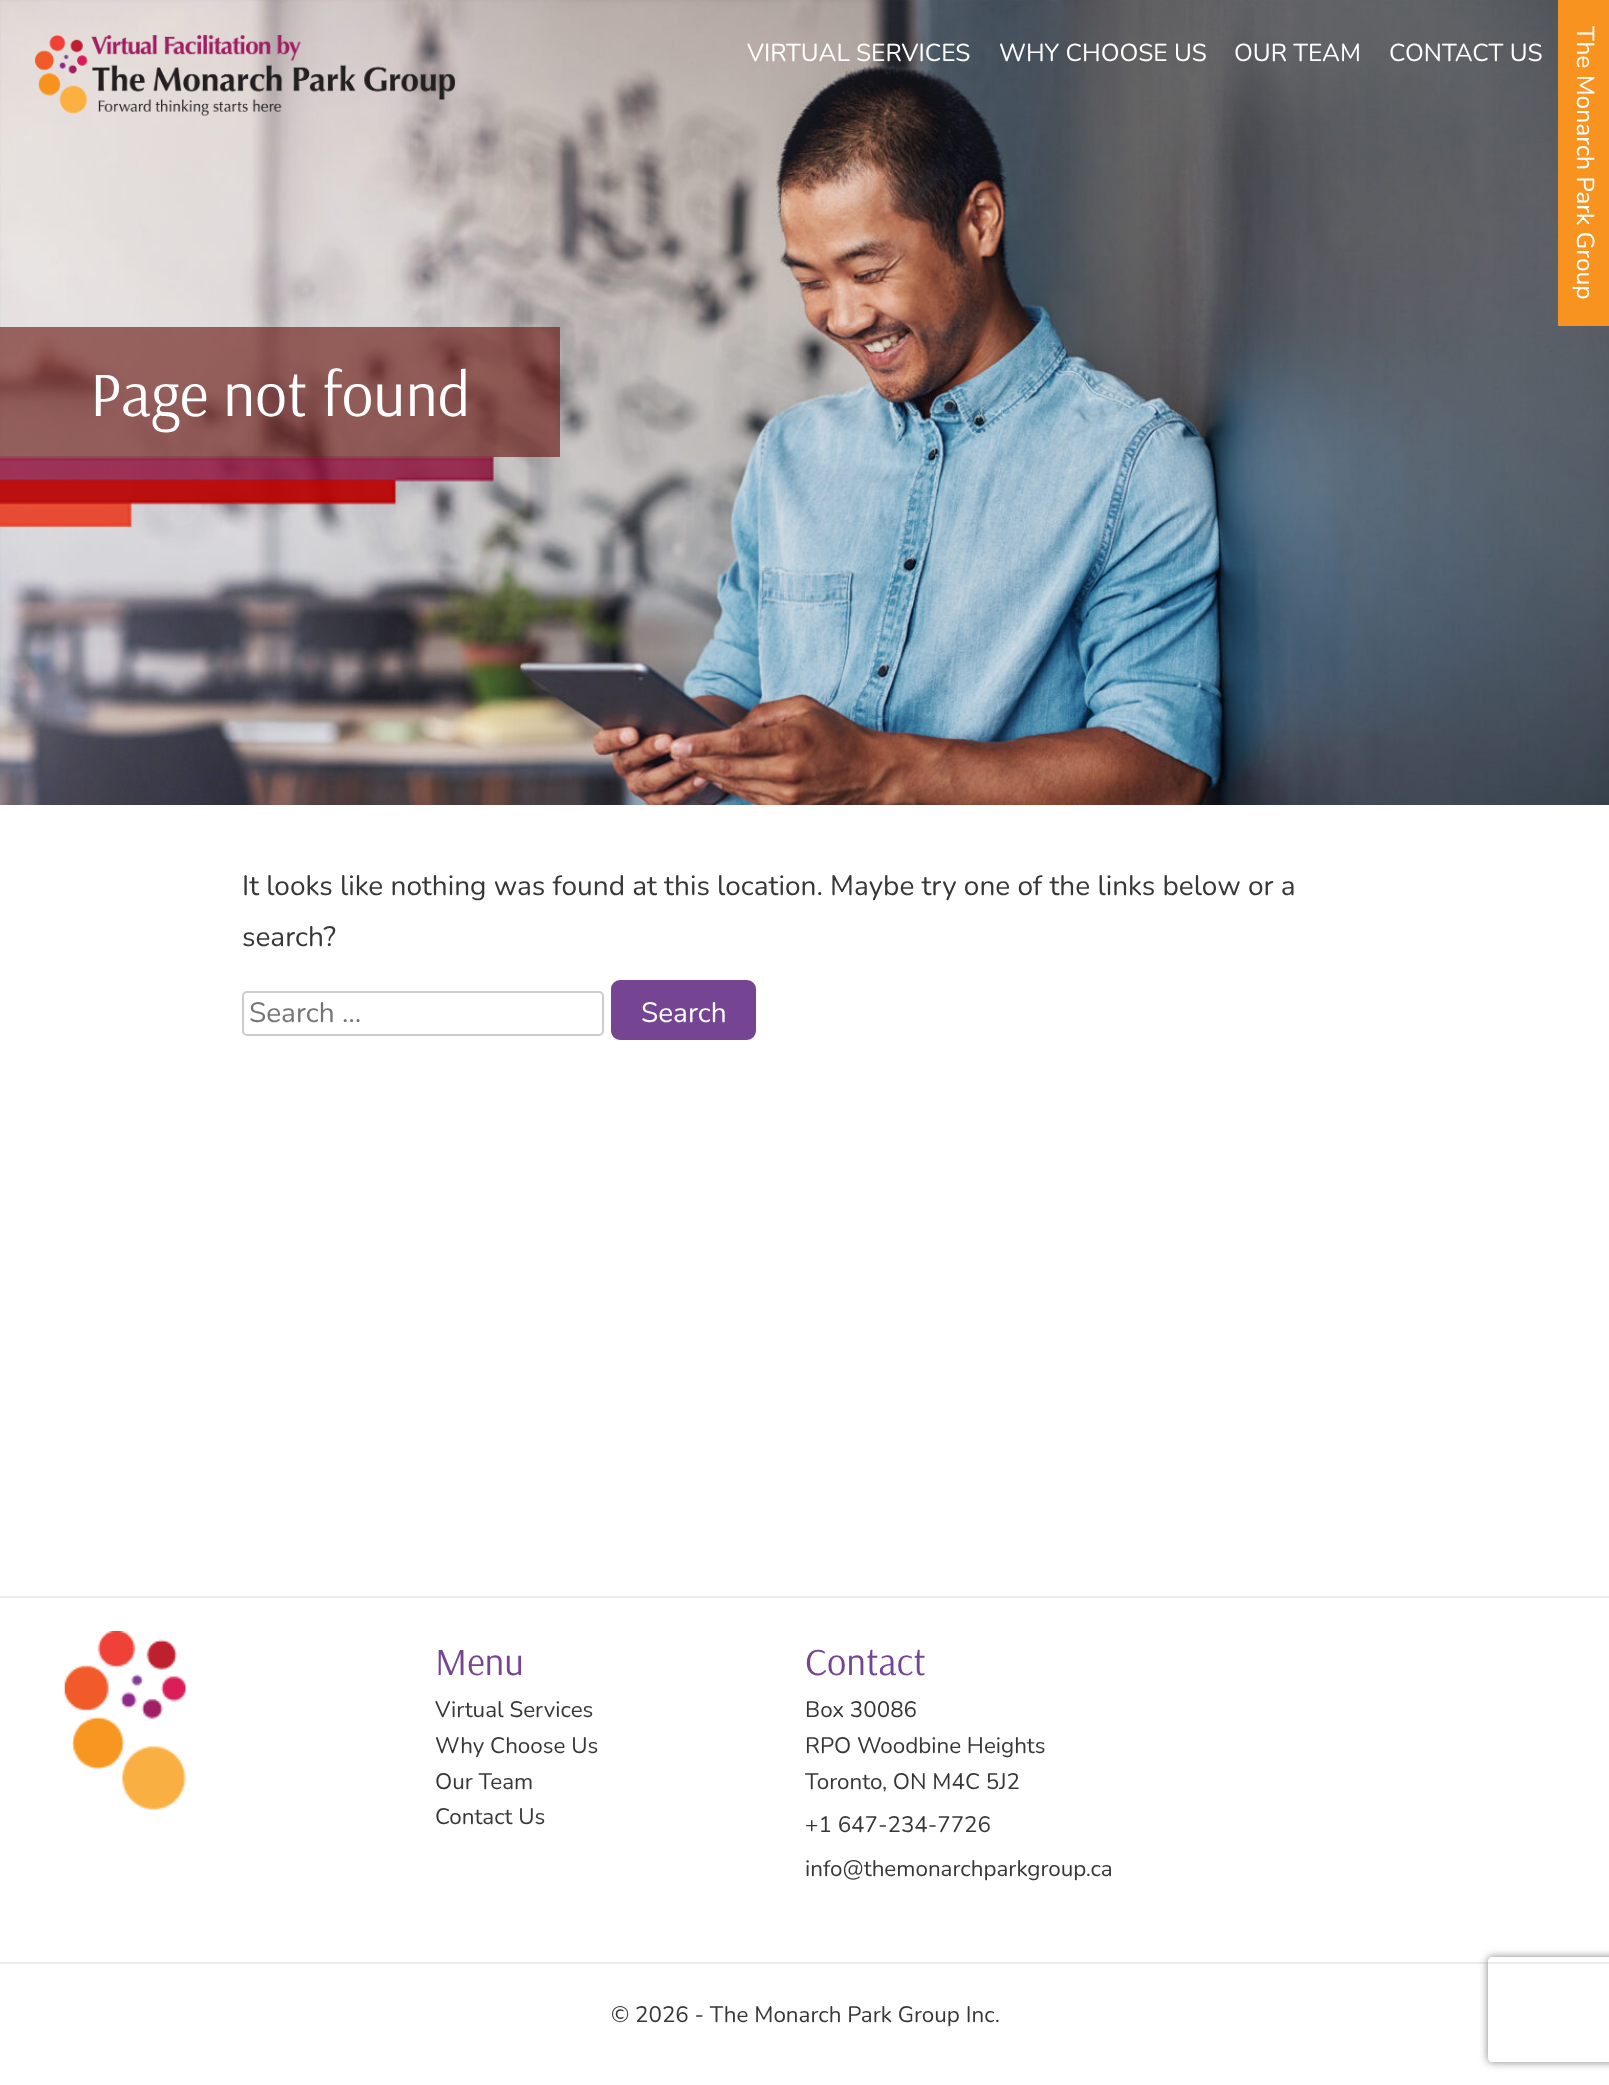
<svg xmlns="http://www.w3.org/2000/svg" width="1609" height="2085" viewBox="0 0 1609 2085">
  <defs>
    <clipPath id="clip1"><path d="M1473 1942H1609V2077H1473ZM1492 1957H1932C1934 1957 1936 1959 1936 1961V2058C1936 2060 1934 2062 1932 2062H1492C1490 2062 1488 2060 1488 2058V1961C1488 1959 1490 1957 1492 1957Z" clip-rule="evenodd"/></clipPath>
  </defs>
  <rect width="100%" height="100%" fill="rgb(255,255,255)"/>
  <image x="0" y="0" width="1609" height="805" href="pic1.png"/>
  <image x="35" y="35" width="420" height="81" href="pic2.png"/>
  <g font-family="Nunito" font-size="24.5" fill="rgb(255,255,255)">
    <text x="747" y="61">VIRTUAL SERVICES</text>
    <text x="999" y="61">WHY CHOOSE US</text>
    <text x="1234" y="61">OUR TEAM</text>
    <text x="1389" y="61">CONTACT US</text>
  </g>
  <rect x="1558" y="0" width="51" height="326" fill="rgb(248,147,31)"/>
  <text x="1577" y="26" transform="rotate(90 1577 26)" font-family="Nunito" font-size="24.5" fill="rgb(255,255,255)">The Monarch Park Group</text>
  <image x="0" y="456" width="494" height="71" href="pic3.png"/>
  <rect x="0" y="327" width="560" height="130" fill="rgba(99,12,5,0.6)"/>
  <text x="90" y="416" font-family="Arsenal" font-size="63" fill="rgb(255,255,255)">Page not found</text>
  <g font-family="Nunito" font-size="28" fill="rgb(55,55,55)">
    <text>
      <tspan x="242" y="895">It looks like nothing was found at this location. Maybe try one of the links below or a</tspan>
      <tspan x="242" y="946">search?</tspan>
    </text>
  </g>
  <rect x="243" y="992" width="360" height="43" rx="4" fill="none" stroke="rgb(204,204,204)" stroke-width="2"/>
  <text x="249" y="1022" font-family="Nunito" font-size="28" fill="rgb(117,117,117)">Search …</text>
  <rect x="612" y="981" width="143" height="58" rx="8" fill="rgb(117,68,147)" stroke="rgb(117,68,147)" stroke-width="2"/>
  <text x="641" y="1022" font-family="Nunito" font-size="28" fill="rgb(255,255,255)">Search</text>
  <rect x="0" y="1596" width="1609" height="2" fill="rgb(235,235,235)"/>
  <rect x="0" y="1962" width="1609" height="2" fill="rgb(235,235,235)"/>
  <image x="64" y="1631" width="122" height="179" href="pic4.png"/>
  <text x="435" y="1675" font-family="Arsenal" font-size="38.5" fill="rgb(117,68,147)">Menu</text>
  <g font-family="Nunito" font-size="22.4" fill="rgb(55,55,55)">
    <text>
      <tspan x="435" y="1717">Virtual Services</tspan>
      <tspan x="435" y="1753">Why Choose Us</tspan>
      <tspan x="435" y="1789">Our Team</tspan>
      <tspan x="435" y="1824">Contact Us</tspan>
    </text>
  </g>
  <text x="805" y="1675" font-family="Arsenal" font-size="38.5" fill="rgb(117,68,147)">Contact</text>
  <g font-family="Nunito" font-size="22.4" fill="rgb(55,55,55)">
    <text>
      <tspan x="805" y="1717">Box 30086</tspan>
      <tspan x="805" y="1753">RPO Woodbine Heights</tspan>
      <tspan x="805" y="1789">Toronto, ON M4C 5J2</tspan>
      <tspan x="805" y="1832">+1 647-234-7726</tspan>
      <tspan x="805" y="1876">info@themonarchparkgroup.ca</tspan>
    </text>
    <text x="611" y="2022">© 2026 - The Monarch Park Group Inc.</text>
  </g>
  <g clip-path="url(#clip1)">
    <rect x="1488" y="1957" width="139" height="105" rx="4" fill="rgb(128,128,128)" filter="blur(4.5px)"/>
  </g>
</svg>
